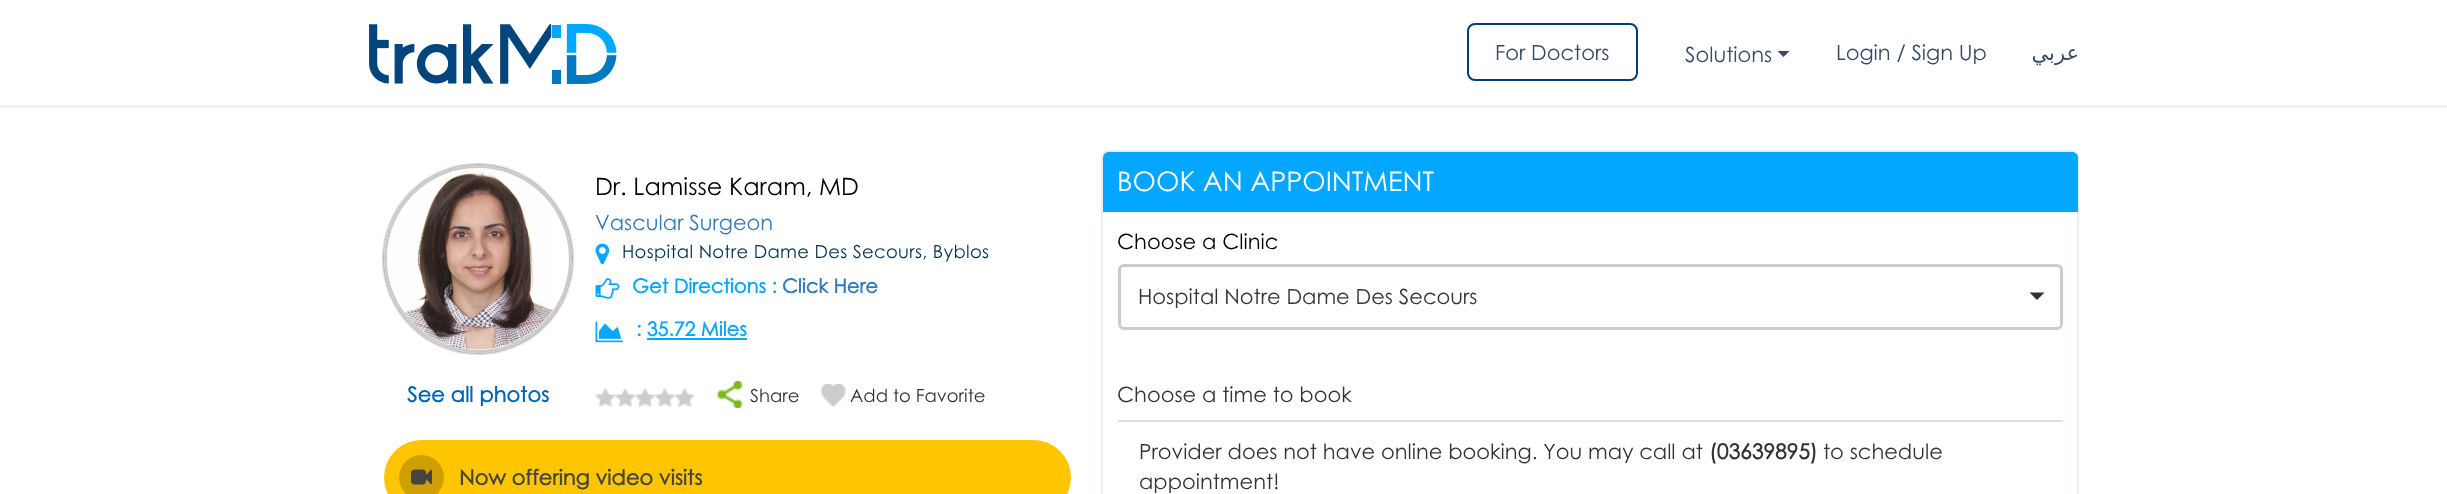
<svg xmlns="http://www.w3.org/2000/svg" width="2447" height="494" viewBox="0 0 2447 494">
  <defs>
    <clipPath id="clip1"><rect x="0" y="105" width="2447" height="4"/></clipPath>
    <clipPath id="clip2"><path d="M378 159H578V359H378ZM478 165C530 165 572 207 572 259C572 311 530 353 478 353C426 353 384 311 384 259C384 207 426 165 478 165Z" clip-rule="evenodd"/></clipPath>
  </defs>
  <rect width="100%" height="100%" fill="rgb(255,255,255)"/>
  <g clip-path="url(#clip1)">
    <rect x="-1" y="0" width="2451" height="108" fill="rgba(153,153,153,0.12)" filter="blur(1px)"/>
  </g>
  <image x="369" y="24" width="248" height="60" href="pic1.png"/>
  <rect x="1468" y="24" width="169" height="56" rx="7" fill="none" stroke="rgb(0,64,117)" stroke-width="2"/>
  <g font-family="Century Gothic" font-size="21" fill="rgb(54,74,99)">
    <text x="1495" y="60">For Doctors</text>
    <text x="1685" y="62">Solutions</text>
  </g>
  <path d="M1777.5 51H1789.5L1783.5 57Z" fill="rgb(54,74,99)"/>
  <text x="1836" y="60" font-family="Century Gothic" font-size="21" fill="rgb(54,74,99)">Login / Sign Up</text>
  <text x="2079" y="60" font-family="DejaVu Sans" font-size="21" direction="rtl" fill="rgb(54,74,99)">عربي</text>
  <g clip-path="url(#clip2)">
    <rect x="384" y="165" width="188" height="188" rx="94" fill="rgba(0,0,0,0.8)" filter="blur(1.5px)"/>
  </g>
  <circle cx="478" cy="259" r="92.5" fill="none" stroke="rgb(204,204,204)" stroke-width="3"/>
  <image x="387" y="171" width="167" height="179" href="pic2.png"/>
  <text x="407" y="402" font-family="Century Gothic" font-size="21" font-weight="bold" fill="rgb(0,102,179)">See all photos</text>
  <text x="595" y="195" font-family="Century Gothic" font-size="24" fill="rgb(0,0,0)">Dr. Lamisse Karam, MD</text>
  <text x="595" y="230" font-family="Century Gothic" font-size="21" fill="rgb(51,122,183)">Vascular Surgeon</text>
  <image x="595" y="243" width="15" height="22" href="pic3.png"/>
  <text x="622" y="258" font-family="Century Gothic" font-size="18" letter-spacing="0.3" fill="rgb(0,48,82)">Hospital Notre Dame Des Secours, Byblos</text>
  <image x="595" y="278" width="25" height="21" href="pic4.png"/>
  <text x="632" y="293" font-family="Century Gothic" font-size="19.5" font-weight="bold" fill="rgb(8,166,255)">Get Directions :</text>
  <text x="782" y="293" font-family="Century Gothic" font-size="19.5" font-weight="bold" fill="rgb(51,122,183)">Click Here</text>
  <image x="595" y="321" width="28" height="22" href="pic5.png"/>
  <text x="636" y="336" font-family="Century Gothic" font-size="19.5" font-weight="bold" fill="rgb(8,166,255)">: 35.72 Miles</text>
  <rect x="647" y="338" width="100" height="2" fill="rgb(8,166,255)"/>
  <image x="595" y="388" width="100" height="19" href="pic6.png"/>
  <image x="716" y="381" width="27" height="27" href="pic7.png"/>
  <text x="750" y="402" font-family="Century Gothic" font-size="18" fill="rgb(51,51,51)">Share</text>
  <image x="820" y="384" width="26" height="23" href="pic8.png"/>
  <text x="850" y="402" font-family="Century Gothic" font-size="18" fill="rgb(51,51,51)">Add to Favorite</text>
  <rect x="384" y="440" width="687" height="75" rx="37.5" fill="rgb(255,197,0)"/>
  <circle cx="421.5" cy="477.5" r="22.5" fill="rgb(206,159,0)"/>
  <image x="411" y="469" width="21" height="16" href="pic9.png"/>
  <text x="459" y="485" font-family="Century Gothic" font-size="21" font-weight="bold" fill="rgb(68,68,68)">Now offering video visits</text>
  <rect x="1102" y="151" width="976" height="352" rx="7" fill="none" stroke="rgb(234,237,242)" stroke-width="2"/>
  <path d="M1109 152H2072C2075.5 152 2078 154.5 2078 158V212H1103V158C1103 154.5 1105.5 152 1109 152Z" fill="rgb(4,167,255)"/>
  <text x="1117" y="191" font-family="Century Gothic" font-size="27" fill="rgb(255,255,255)">BOOK AN APPOINTMENT</text>
  <text x="1117" y="249" font-family="Century Gothic" font-size="21" fill="rgb(0,0,0)">Choose a Clinic</text>
  <rect x="1119.5" y="265.5" width="942" height="63" rx="4.5" fill="none" stroke="rgb(204,204,204)" stroke-width="3"/>
  <text x="1138" y="304" font-family="Century Gothic" font-size="21" fill="rgb(51,51,51)">Hospital Notre Dame Des Secours</text>
  <path d="M2029.5 292.5H2044.5L2037 300Z" fill="rgb(51,51,51)"/>
  <rect x="1118" y="420" width="945" height="2" fill="rgb(221,221,221)"/>
  <g font-family="Century Gothic" font-size="21" fill="rgb(51,51,51)">
    <text x="1117" y="402">Choose a time to book</text>
    <text x="1139" y="459">Provider does not have online booking. You may call at</text>
  </g>
  <text x="1709" y="459" font-family="Century Gothic" font-size="21" font-weight="bold" fill="rgb(51,51,51)">(03639895)</text>
  <g font-family="Century Gothic" font-size="21" fill="rgb(51,51,51)">
    <text x="1823" y="459">to schedule</text>
    <text x="1139" y="489">appointment!</text>
  </g>
</svg>
